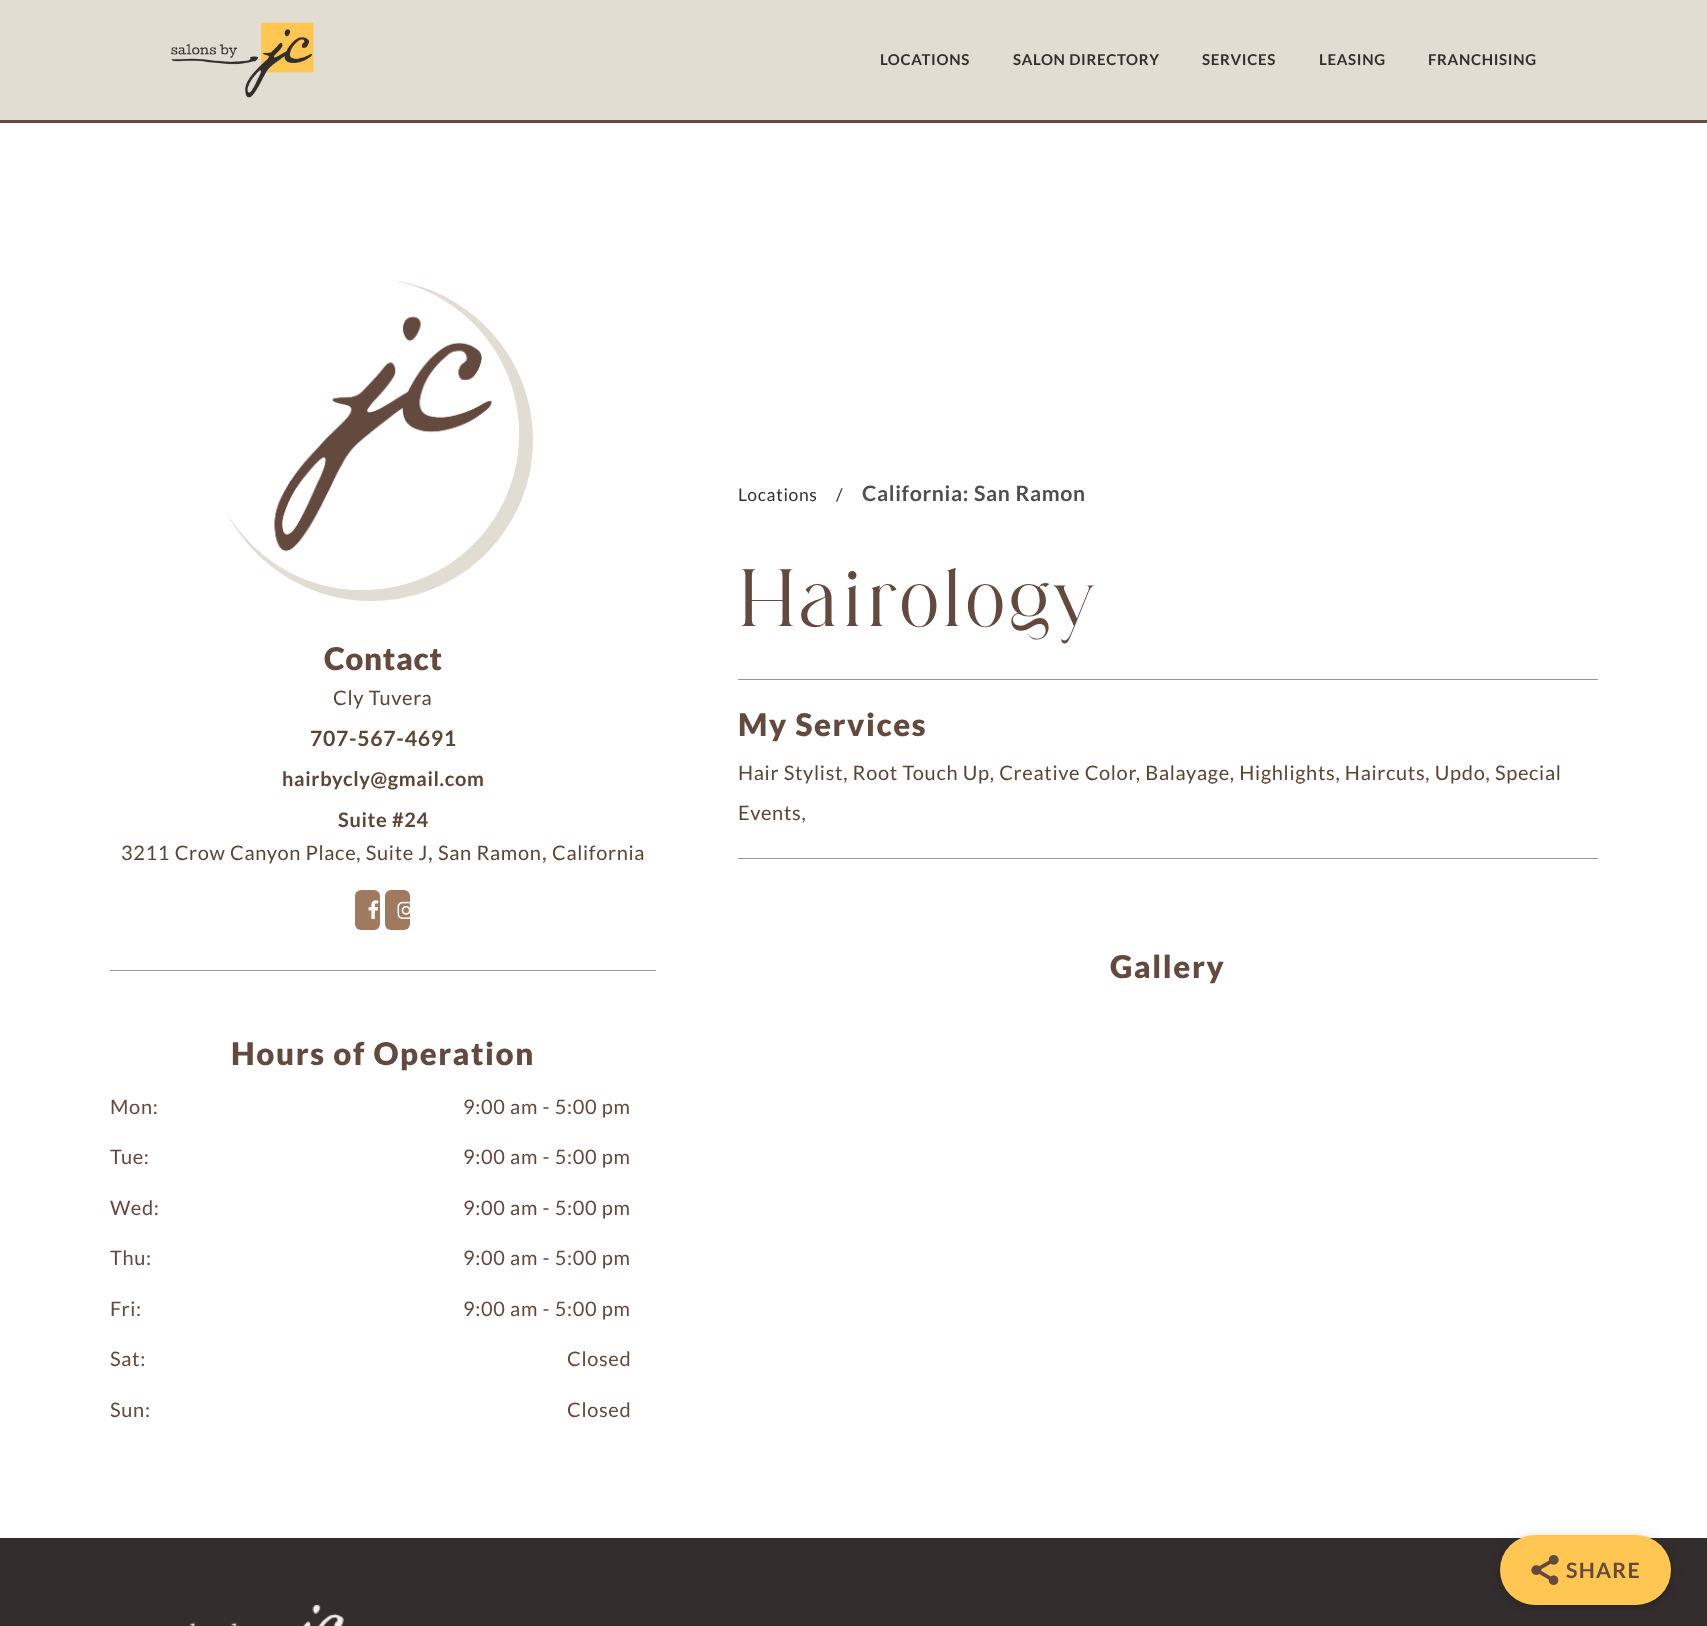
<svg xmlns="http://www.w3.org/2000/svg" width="1707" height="1626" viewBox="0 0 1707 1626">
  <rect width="100%" height="100%" fill="rgb(255,255,255)"/>
  <rect x="0" y="0" width="1707" height="120" fill="rgb(226,221,211)"/>
  <rect x="0" y="120" width="1707" height="3" fill="rgb(99,73,62)"/>
  <image x="171" y="22" width="143" height="76" href="pic1.png"/>
  <g font-family="Lato" font-size="15" font-weight="bold" letter-spacing="0.68" fill="rgb(51,46,45)">
    <text x="880" y="65">LOCATIONS</text>
    <text x="1013" y="65">SALON DIRECTORY</text>
    <text x="1202" y="65">SERVICES</text>
    <text x="1319" y="65">LEASING</text>
    <text x="1428" y="65">FRANCHISING</text>
  </g>
  <path d="M225 509C251 563 307 601 371 601H372C461 601 533 529 533 440C533 358 471 290 391 280C464 294 519 357 519 434C519 520 449 590 362 590C303 590 252 557 225 509Z" fill="rgb(226,221,211)"/>
  <rect x="206" y="278" width="313" height="312" rx="156" fill="rgb(255,255,255)"/>
  <image x="274" y="316" width="218" height="236" href="pic2.png"/>
  <text x="324" y="670" font-family="Lato" font-size="31.25" font-weight="900" letter-spacing="0.68" fill="rgb(99,73,62)">Contact</text>
  <text x="333" y="705" font-family="Lato" font-size="20" letter-spacing="0.68" fill="rgb(93,69,53)">Cly Tuvera</text>
  <text x="310" y="746" font-family="Lato" font-size="21.25" font-weight="bold" letter-spacing="0.68" fill="rgb(93,69,53)">707-567-4691</text>
  <g font-family="Lato" font-size="20" font-weight="bold" letter-spacing="0.68" fill="rgb(93,69,53)">
    <text x="282" y="786">hairbycly@gmail.com</text>
    <text x="338" y="827">Suite #24</text>
  </g>
  <text x="121" y="860" font-family="Lato" font-size="20" letter-spacing="0.68" fill="rgb(93,69,53)">3211 Crow Canyon Place, Suite J</text>
  <text x="428" y="860" font-family="Lato" font-size="22" letter-spacing="0.68" fill="rgb(99,73,62)">,</text>
  <text x="438" y="860" font-family="Lato" font-size="20" letter-spacing="0.68" fill="rgb(93,69,53)">San Ramon</text>
  <text x="542" y="860" font-family="Lato" font-size="22" letter-spacing="0.68" fill="rgb(99,73,62)">,</text>
  <text x="552" y="860" font-family="Lato" font-size="20" letter-spacing="0.68" fill="rgb(93,69,53)">California</text>
  <rect x="355" y="890" width="25" height="40" rx="6" fill="rgb(161,121,95)"/>
  <image x="368" y="900" width="11" height="19" href="pic3.png"/>
  <rect x="385" y="890" width="25" height="40" rx="6" fill="rgb(161,121,95)"/>
  <image x="397" y="901" width="13" height="18" href="pic4.png"/>
  <rect x="110" y="970" width="546" height="1" fill="rgb(151,151,151)"/>
  <text x="231" y="1065" font-family="Lato" font-size="31.25" font-weight="900" letter-spacing="1.6" fill="rgb(99,73,62)">Hours of Operation</text>
  <g font-family="Lato" font-size="20" letter-spacing="0.68" fill="rgb(99,73,62)">
    <text x="110" y="1114">Mon:</text>
    <text x="463" y="1114">9:00 am - 5:00 pm</text>
    <text x="110" y="1164">Tue:</text>
    <text x="463" y="1164">9:00 am - 5:00 pm</text>
    <text x="110" y="1215">Wed:</text>
    <text x="463" y="1215">9:00 am - 5:00 pm</text>
    <text x="110" y="1265">Thu:</text>
    <text x="463" y="1265">9:00 am - 5:00 pm</text>
    <text x="110" y="1316">Fri:</text>
    <text x="463" y="1316">9:00 am - 5:00 pm</text>
    <text x="110" y="1366">Sat:</text>
    <text x="567" y="1366">Closed</text>
    <text x="110" y="1417">Sun:</text>
    <text x="567" y="1417">Closed</text>
  </g>
  <g font-family="Lato" font-size="17.5" letter-spacing="0.68" fill="rgb(51,46,45)">
    <text x="738" y="501">Locations</text>
    <text x="836" y="501">/</text>
  </g>
  <text x="862" y="501" font-family="Lato" font-size="21.25" font-weight="bold" letter-spacing="0.68" fill="rgb(79,79,79)">California: San Ramon</text>
  <text x="738" y="626" font-family="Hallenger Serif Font" font-size="81.25" letter-spacing="4" fill="rgb(99,73,62)">Hairology</text>
  <rect x="738" y="679" width="860" height="1" fill="rgb(151,151,151)"/>
  <text x="738" y="736" font-family="Lato" font-size="31.25" font-weight="900" letter-spacing="1.6" fill="rgb(99,73,62)">My Services</text>
  <g font-family="Lato" font-size="20" letter-spacing="0.68" fill="rgb(93,69,53)">
    <text x="738" y="780">Hair Stylist, Root Touch Up, Creative Color, Balayage, Highlights, Haircuts, Updo, Special</text>
    <text x="738" y="820">Events,</text>
  </g>
  <rect x="738" y="858" width="860" height="1" fill="rgb(151,151,151)"/>
  <text x="1110" y="978" font-family="Lato" font-size="31.25" font-weight="900" letter-spacing="1.6" fill="rgb(99,73,62)">Gallery</text>
  <rect x="0" y="1538" width="1707" height="88" fill="rgb(51,46,45)"/>
  <image x="189" y="1604" width="155" height="22" href="pic5.png"/>
  <rect x="1500" y="1536" width="171" height="70" rx="35" fill="rgba(0,0,0,0.12)" filter="blur(6px)"/>
  <rect x="1501" y="1539" width="169" height="67" rx="33.5" fill="rgba(0,0,0,0.2)" filter="blur(2.5px)"/>
  <rect x="1500" y="1535" width="171" height="70" rx="35" fill="rgb(255,199,82)"/>
  <image x="1531" y="1555" width="28" height="30" href="pic6.png"/>
  <text x="1566" y="1578" font-family="Lato" font-size="21.25" font-weight="bold" letter-spacing="1.25" fill="rgb(99,73,62)">SHARE</text>
</svg>
